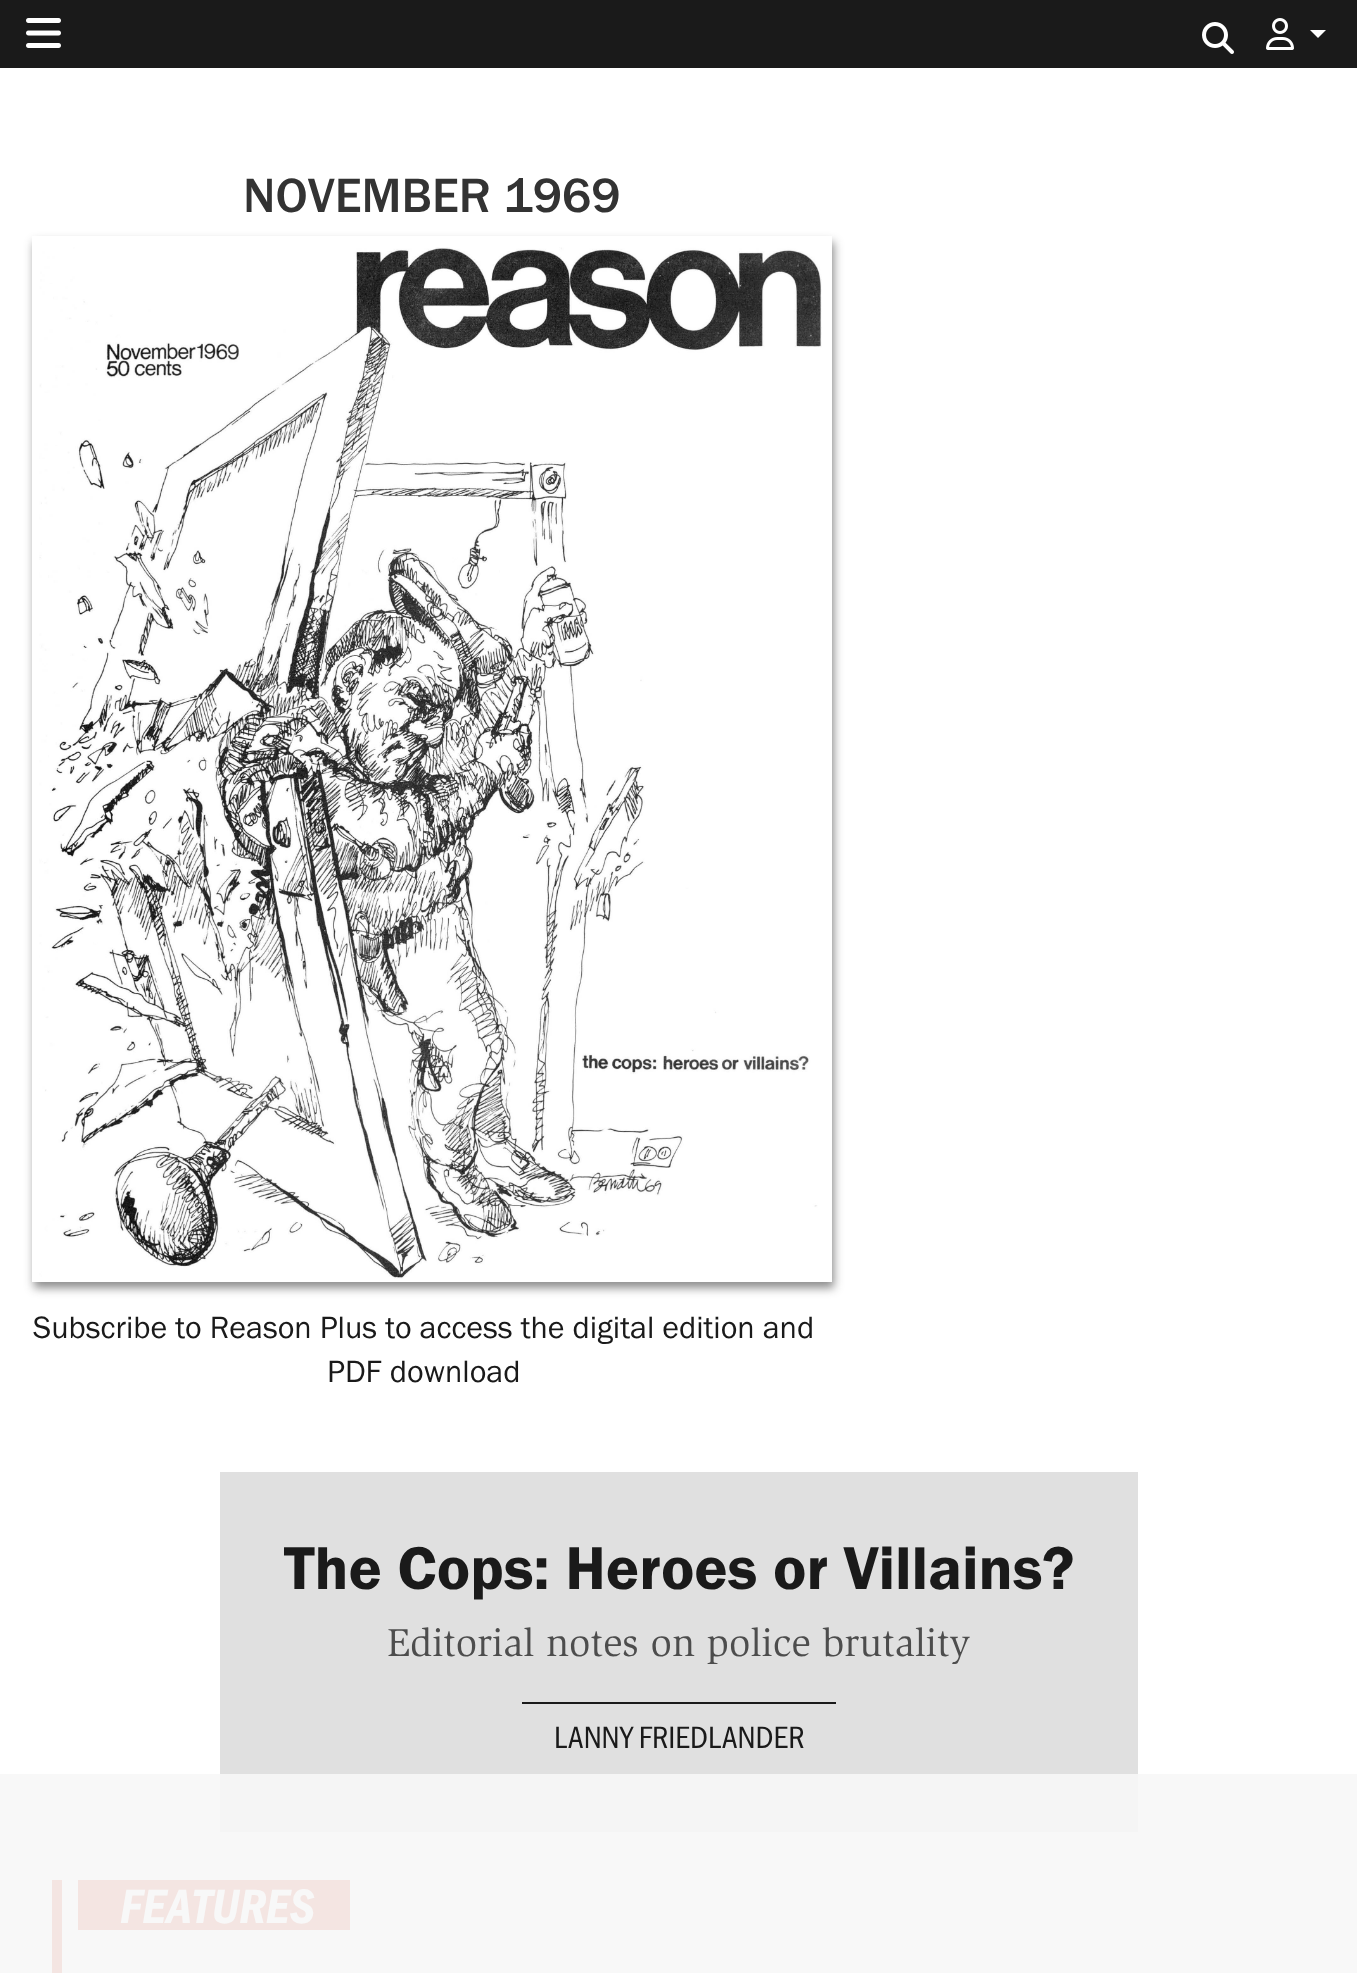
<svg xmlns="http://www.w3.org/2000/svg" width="1357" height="1973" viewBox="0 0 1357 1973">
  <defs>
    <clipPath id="clip1"><path d="M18 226H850V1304H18ZM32 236H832V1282H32Z" clip-rule="evenodd"/></clipPath>
  </defs>
  <rect width="100%" height="100%" fill="rgb(255,255,255)"/>
  <rect x="0" y="1774" width="1357" height="199" fill="rgb(248,248,248)"/>
  <rect x="0" y="0" width="1357" height="68" fill="rgb(26,26,26)"/>
  <image x="26" y="18" width="35" height="30" href="pic1.png"/>
  <image x="1202" y="22" width="32" height="32" href="pic2.png"/>
  <image x="1266" y="18" width="28" height="32" href="pic3.png"/>
  <path d="M1310 30H1326L1318 38Z" fill="rgb(255,255,255)"/>
  <text x="243" y="212" font-family="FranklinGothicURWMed" font-size="50" fill="rgb(51,51,51)">NOVEMBER 1969</text>
  <g clip-path="url(#clip1)">
    <rect x="34" y="242" width="800" height="1046" fill="rgba(26,26,26,0.5)" filter="blur(5px)"/>
  </g>
  <image x="39" y="247" width="783" height="1032" href="pic4.png"/>
  <g font-family="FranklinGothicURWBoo" font-size="32" fill="rgb(26,26,26)">
    <text x="33" y="1338">Subscribe to Reason Plus to access the digital edition and</text>
    <text x="327" y="1382">PDF download</text>
  </g>
  <rect x="220" y="1472" width="918" height="302" fill="rgb(224,224,224)"/>
  <rect x="220" y="1774" width="918" height="58" fill="rgb(245,245,245)"/>
  <text x="284" y="1589" font-family="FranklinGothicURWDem" font-size="62.5" fill="rgb(26,26,26)">The Cops: Heroes or Villains?</text>
  <text x="387" y="1656" font-family="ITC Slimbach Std" font-size="40" fill="rgb(77,77,77)">Editorial notes on police brutality</text>
  <rect x="522" y="1702" width="314" height="2" fill="rgb(26,26,26)"/>
  <text x="554" y="1748" font-family="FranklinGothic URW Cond" font-size="32" fill="rgb(26,26,26)">LANNY FRIEDLANDER</text>
  <rect x="52" y="1880" width="10" height="93" fill="rgb(244,229,226)"/>
  <rect x="78" y="1880" width="272" height="50" fill="rgb(244,229,226)"/>
  <text x="120" y="1923" font-family="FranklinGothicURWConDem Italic" font-size="50" font-style="italic" fill="rgb(248,248,248)">FEATURES</text>
</svg>
